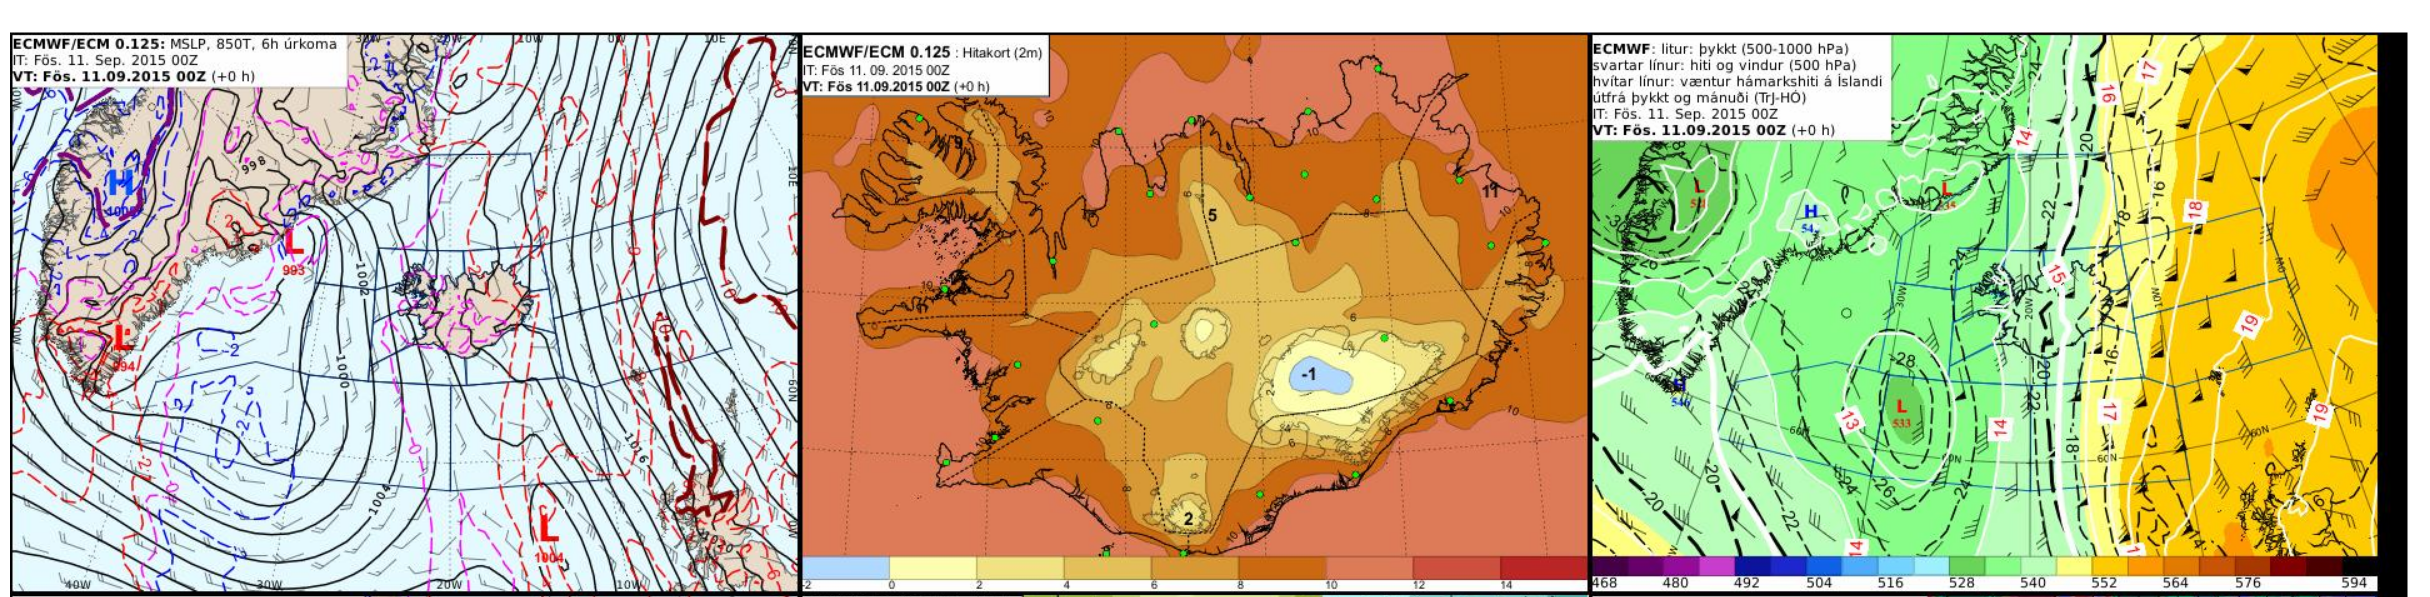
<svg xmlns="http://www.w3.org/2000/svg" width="2430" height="597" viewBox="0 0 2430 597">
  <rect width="100%" height="100%" fill="rgb(255,255,255)"/>
  <image x="10" y="32" width="2398" height="565" href="pic1.png"/>
</svg>
